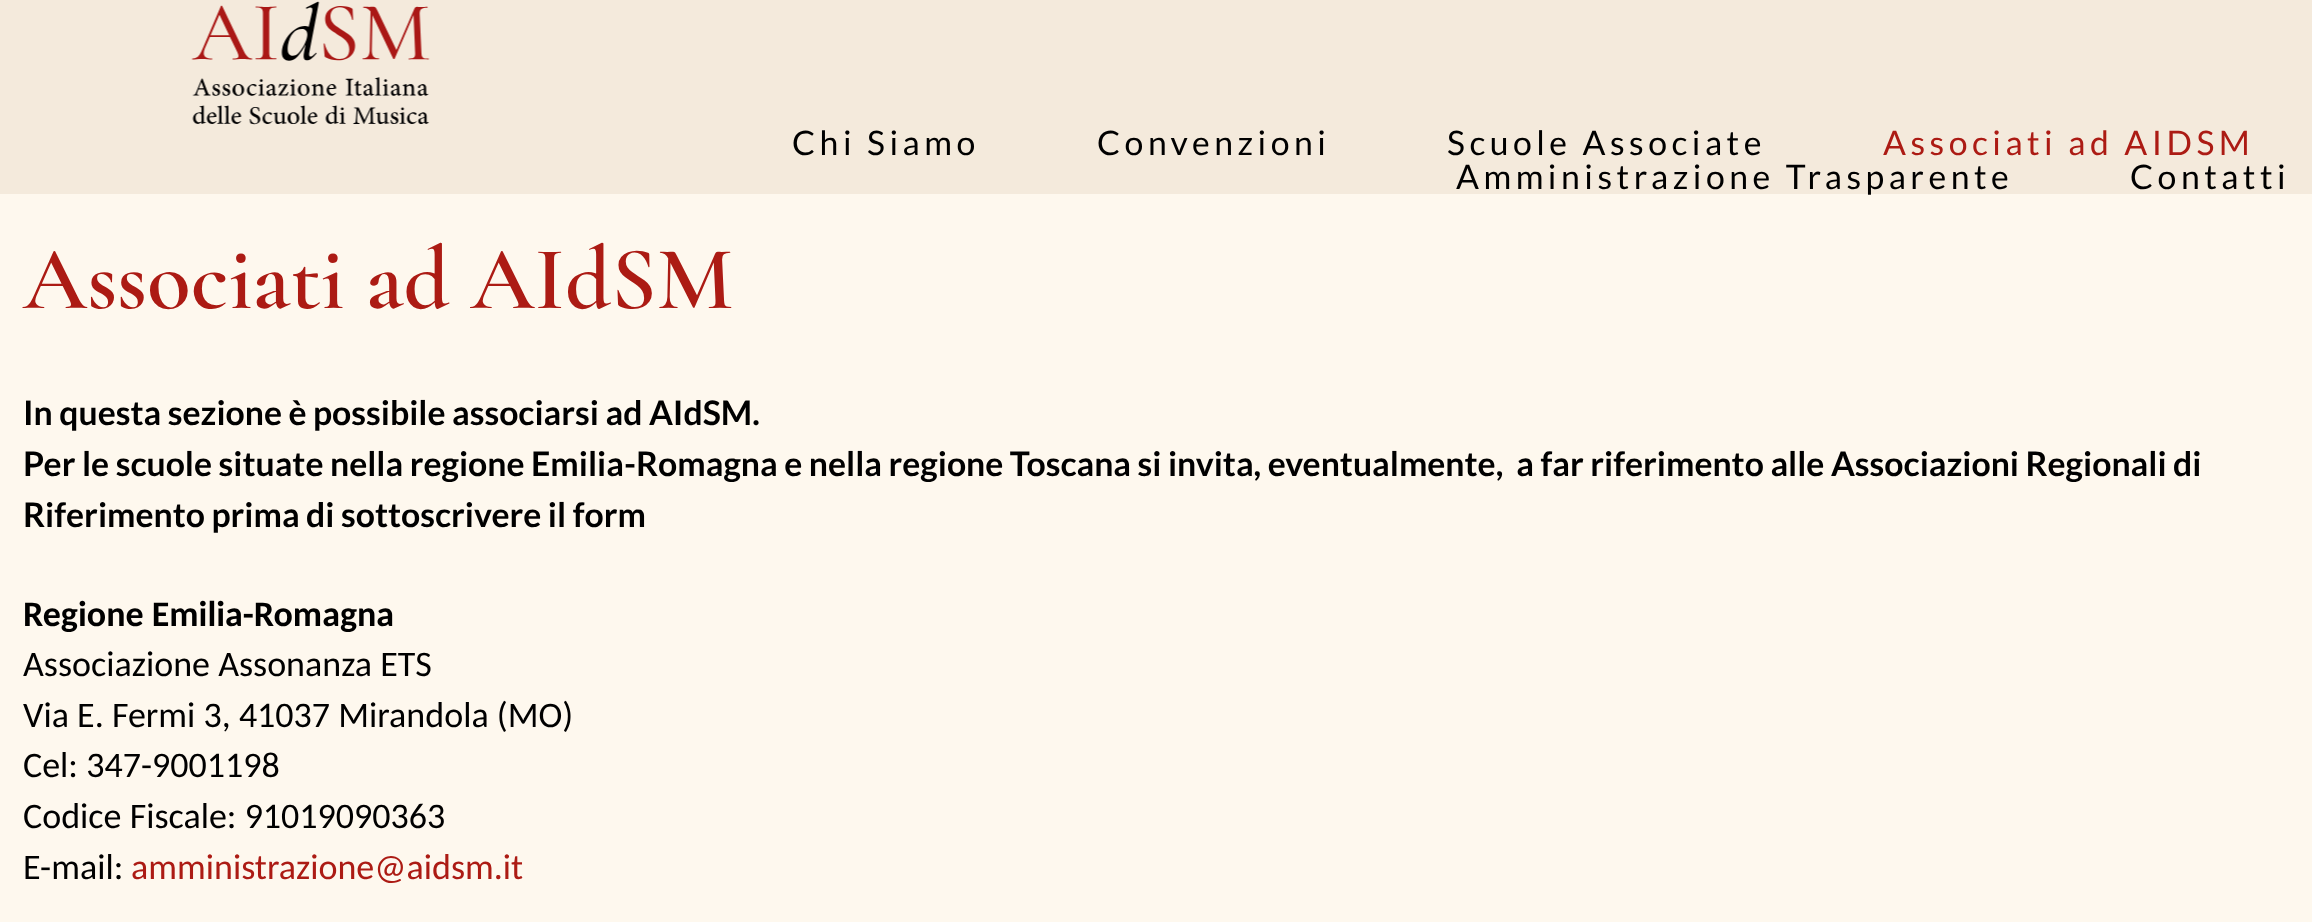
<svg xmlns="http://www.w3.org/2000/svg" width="2312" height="922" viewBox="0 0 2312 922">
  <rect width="100%" height="100%" fill="rgb(254,248,238)"/>
  <rect x="0" y="0" width="2312" height="194" fill="rgb(244,234,220)"/>
  <image x="191" y="1" width="239" height="124" href="pic1.png"/>
  <g font-family="Lato" font-size="33.75" letter-spacing="4.5" fill="rgb(0,0,0)">
    <text x="792" y="155">Chi Siamo</text>
    <text x="1097" y="155">Convenzioni</text>
    <text x="1447" y="155">Scuole Associate</text>
  </g>
  <text x="1883" y="155" font-family="Lato" font-size="33.75" letter-spacing="4.5" fill="rgb(172,27,20)">Associati ad AIDSM</text>
  <g font-family="Lato" font-size="33.75" letter-spacing="4.5" fill="rgb(0,0,0)">
    <text x="1456" y="189">Amministrazione Trasparente</text>
    <text x="2130" y="189">Contatti</text>
  </g>
  <text x="23" y="308" font-family="Cormorant Garamond" font-size="90" font-weight="600" fill="rgb(172,27,20)">Associati ad AIdSM</text>
  <g font-family="Lato" font-size="33.75" font-weight="bold" fill="rgb(0,0,0)">
    <text xml:space="preserve"><tspan x="23" y="425">In questa sezione è possibile associarsi ad AIdSM.</tspan><tspan x="23" y="476">Per le scuole situate nella regione Emilia-Romagna e nella regione Toscana si invita, eventualmente,  a far riferimento alle Associazioni Regionali di</tspan><tspan x="23" y="527">Riferimento prima di sottoscrivere il form</tspan></text>
  </g>
  <text x="23" y="626" font-family="Carlito" font-size="36" font-weight="bold" fill="rgb(0,0,0)">Regione Emilia-Romagna</text>
  <g font-family="Carlito" font-size="36" fill="rgb(0,0,0)">
    <text>
      <tspan x="23" y="676">Associazione Assonanza ETS</tspan>
      <tspan x="23" y="727">Via E. Fermi 3, 41037 Mirandola (MO)</tspan>
      <tspan x="23" y="777">Cel: 347-9001198</tspan>
      <tspan x="23" y="828">Codice Fiscale: 91019090363</tspan>
      <tspan x="23" y="879">E-mail:</tspan>
    </text>
  </g>
  <text x="131" y="879" font-family="Carlito" font-size="36" fill="rgb(172,27,20)">amministrazione@aidsm.it</text>
</svg>
